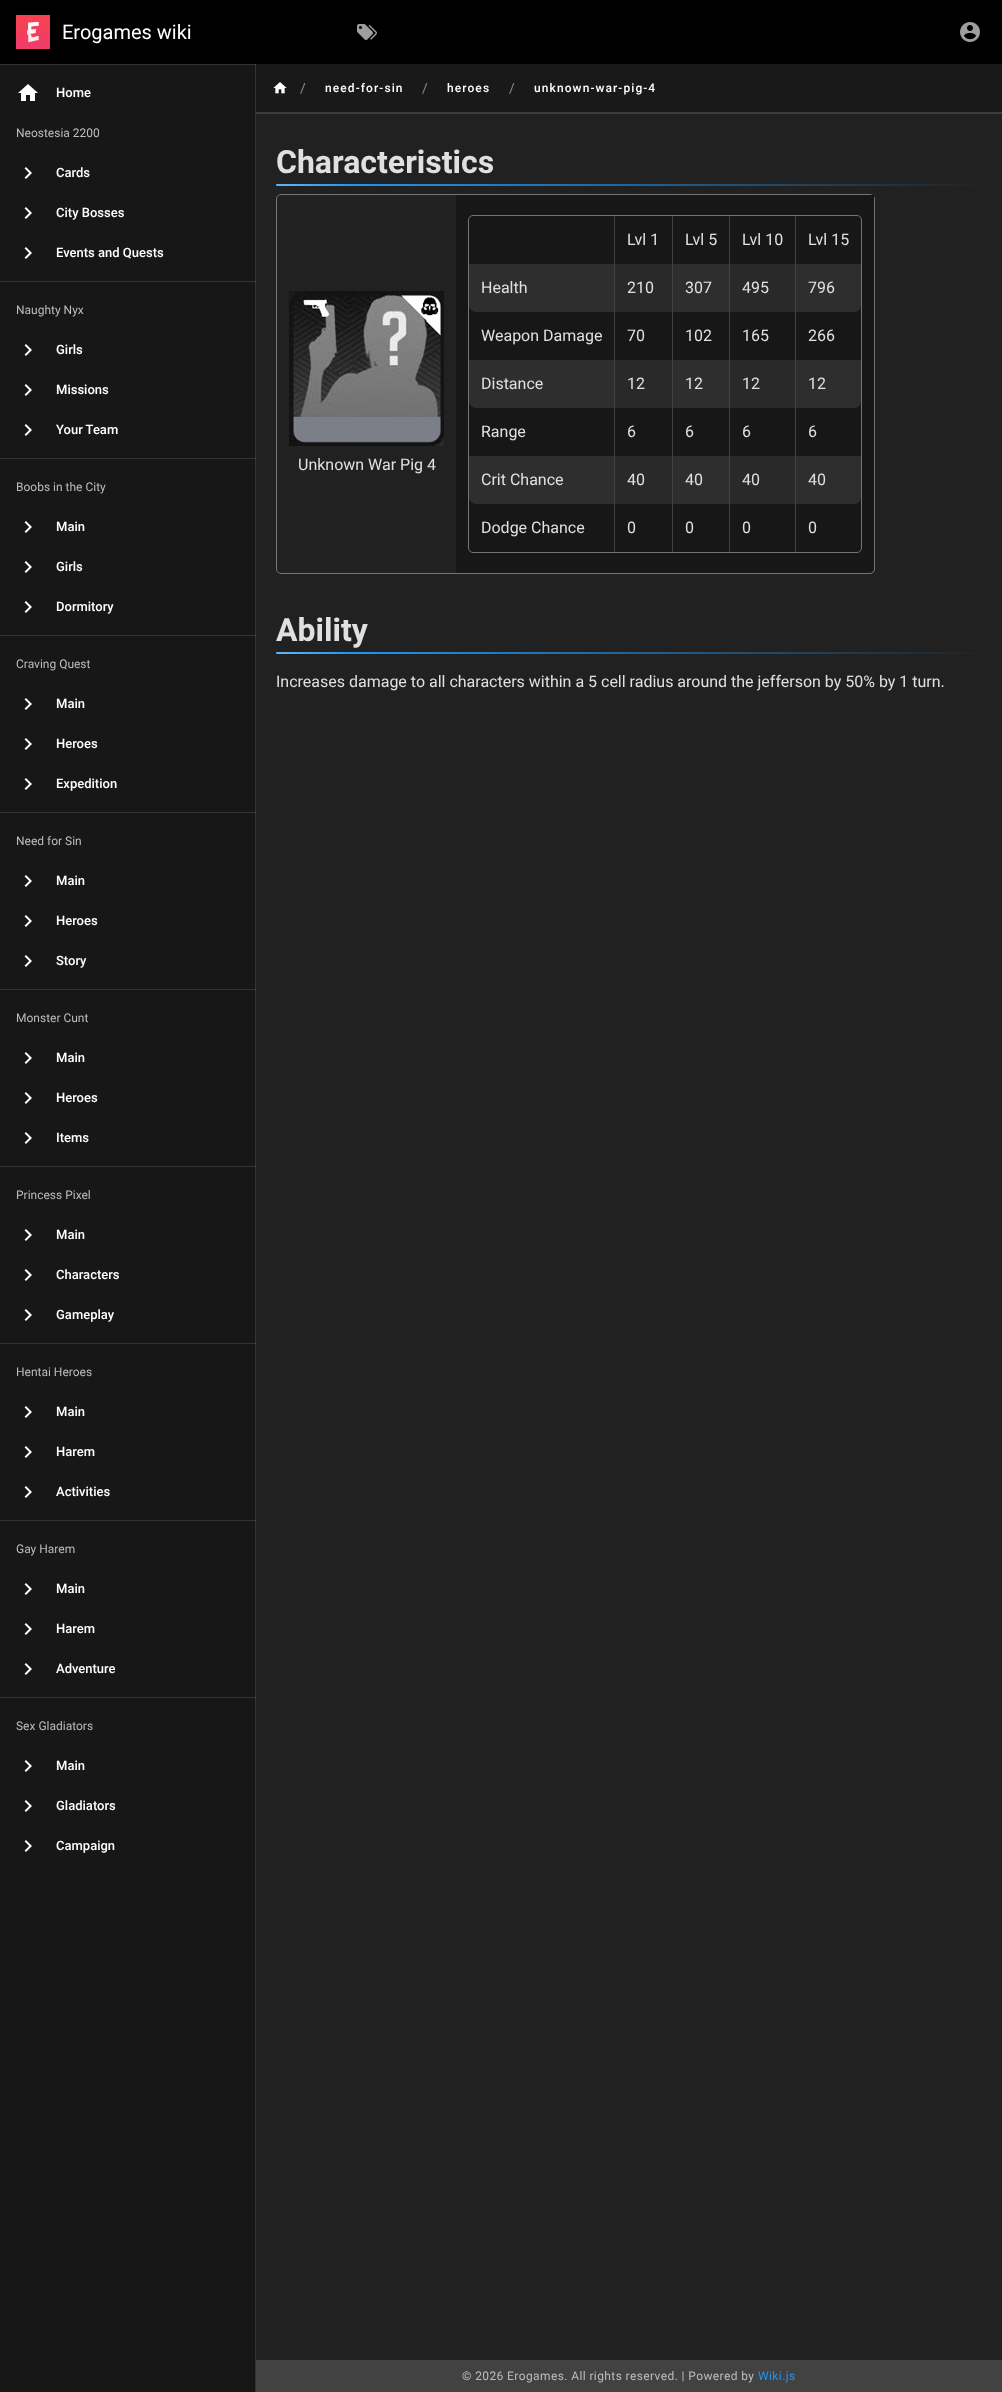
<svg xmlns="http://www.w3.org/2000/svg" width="1002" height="2392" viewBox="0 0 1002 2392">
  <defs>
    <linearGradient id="g1" gradientUnits="userSpaceOnUse" x1="276" y1="185" x2="990" y2="185"><stop offset="0" stop-color="rgb(100,181,246)"/><stop offset="0.1" stop-color="rgb(33,150,243)"/><stop offset="1" stop-color="rgb(33,33,33)"/></linearGradient>
    <linearGradient id="g2" gradientUnits="userSpaceOnUse" x1="276" y1="653" x2="990" y2="653"><stop offset="0" stop-color="rgb(100,181,246)"/><stop offset="0.1" stop-color="rgb(33,150,243)"/><stop offset="1" stop-color="rgb(33,33,33)"/></linearGradient>
  </defs>
  <rect width="100%" height="100%" fill="rgb(33,33,33)"/>
  <rect x="0" y="0" width="1002" height="64" fill="rgb(0,0,0)"/>
  <image x="16" y="15" width="34" height="34" href="pic1.png"/>
  <text x="62" y="39" font-family="Roboto" font-size="20" fill="rgb(255,255,255)">Erogames wiki</text>
  <image x="357" y="24" width="20" height="16" href="pic2.png"/>
  <image x="960" y="22" width="20" height="20" href="pic3.png"/>
  <rect x="0" y="65" width="255" height="2327" fill="rgb(23,23,23)"/>
  <rect x="255" y="64" width="1" height="2328" fill="rgb(51,51,51)"/>
  <rect x="0" y="64" width="256" height="1" fill="rgb(51,51,51)"/>
  <rect x="255" y="64" width="1" height="1" fill="rgb(75,75,75)"/>
  <image x="18" y="84" width="20" height="17" href="pic4.png"/>
  <text x="56" y="97" font-family="Roboto" font-size="13" font-weight="500" fill="rgb(255,255,255)">Home</text>
  <text x="16" y="137" font-family="Roboto" font-size="12" fill="rgb(189,189,189)">Neostesia 2200</text>
  <image x="24" y="167" width="8" height="12" href="pic5.png"/>
  <text x="56" y="177" font-family="Roboto" font-size="13" font-weight="500" fill="rgb(255,255,255)">Cards</text>
  <image x="24" y="207" width="8" height="12" href="pic5.png"/>
  <text x="56" y="217" font-family="Roboto" font-size="13" font-weight="500" fill="rgb(255,255,255)">City Bosses</text>
  <image x="24" y="247" width="8" height="12" href="pic5.png"/>
  <text x="56" y="257" font-family="Roboto" font-size="13" font-weight="500" fill="rgb(255,255,255)">Events and Quests</text>
  <rect x="0" y="281" width="256" height="1" fill="rgb(51,51,51)"/>
  <rect x="255" y="281" width="1" height="1" fill="rgb(75,75,75)"/>
  <text x="16" y="314" font-family="Roboto" font-size="12" fill="rgb(189,189,189)">Naughty Nyx</text>
  <image x="24" y="344" width="8" height="12" href="pic5.png"/>
  <text x="56" y="354" font-family="Roboto" font-size="13" font-weight="500" fill="rgb(255,255,255)">Girls</text>
  <image x="24" y="384" width="8" height="12" href="pic5.png"/>
  <text x="56" y="394" font-family="Roboto" font-size="13" font-weight="500" fill="rgb(255,255,255)">Missions</text>
  <image x="24" y="424" width="8" height="12" href="pic5.png"/>
  <text x="56" y="434" font-family="Roboto" font-size="13" font-weight="500" fill="rgb(255,255,255)">Your Team</text>
  <rect x="0" y="458" width="256" height="1" fill="rgb(51,51,51)"/>
  <rect x="255" y="458" width="1" height="1" fill="rgb(75,75,75)"/>
  <text x="16" y="491" font-family="Roboto" font-size="12" fill="rgb(189,189,189)">Boobs in the City</text>
  <image x="24" y="521" width="8" height="12" href="pic5.png"/>
  <text x="56" y="531" font-family="Roboto" font-size="13" font-weight="500" fill="rgb(255,255,255)">Main</text>
  <image x="24" y="561" width="8" height="12" href="pic5.png"/>
  <text x="56" y="571" font-family="Roboto" font-size="13" font-weight="500" fill="rgb(255,255,255)">Girls</text>
  <image x="24" y="601" width="8" height="12" href="pic5.png"/>
  <text x="56" y="611" font-family="Roboto" font-size="13" font-weight="500" fill="rgb(255,255,255)">Dormitory</text>
  <rect x="0" y="635" width="256" height="1" fill="rgb(51,51,51)"/>
  <rect x="255" y="635" width="1" height="1" fill="rgb(75,75,75)"/>
  <text x="16" y="668" font-family="Roboto" font-size="12" fill="rgb(189,189,189)">Craving Quest</text>
  <image x="24" y="698" width="8" height="12" href="pic5.png"/>
  <text x="56" y="708" font-family="Roboto" font-size="13" font-weight="500" fill="rgb(255,255,255)">Main</text>
  <image x="24" y="738" width="8" height="12" href="pic5.png"/>
  <text x="56" y="748" font-family="Roboto" font-size="13" font-weight="500" fill="rgb(255,255,255)">Heroes</text>
  <image x="24" y="778" width="8" height="12" href="pic5.png"/>
  <text x="56" y="788" font-family="Roboto" font-size="13" font-weight="500" fill="rgb(255,255,255)">Expedition</text>
  <rect x="0" y="812" width="256" height="1" fill="rgb(51,51,51)"/>
  <rect x="255" y="812" width="1" height="1" fill="rgb(75,75,75)"/>
  <text x="16" y="845" font-family="Roboto" font-size="12" fill="rgb(189,189,189)">Need for Sin</text>
  <image x="24" y="875" width="8" height="12" href="pic5.png"/>
  <text x="56" y="885" font-family="Roboto" font-size="13" font-weight="500" fill="rgb(255,255,255)">Main</text>
  <image x="24" y="915" width="8" height="12" href="pic5.png"/>
  <text x="56" y="925" font-family="Roboto" font-size="13" font-weight="500" fill="rgb(255,255,255)">Heroes</text>
  <image x="24" y="955" width="8" height="12" href="pic5.png"/>
  <text x="56" y="965" font-family="Roboto" font-size="13" font-weight="500" fill="rgb(255,255,255)">Story</text>
  <rect x="0" y="989" width="256" height="1" fill="rgb(51,51,51)"/>
  <rect x="255" y="989" width="1" height="1" fill="rgb(75,75,75)"/>
  <text x="16" y="1022" font-family="Roboto" font-size="12" fill="rgb(189,189,189)">Monster Cunt</text>
  <image x="24" y="1052" width="8" height="12" href="pic5.png"/>
  <text x="56" y="1062" font-family="Roboto" font-size="13" font-weight="500" fill="rgb(255,255,255)">Main</text>
  <image x="24" y="1092" width="8" height="12" href="pic5.png"/>
  <text x="56" y="1102" font-family="Roboto" font-size="13" font-weight="500" fill="rgb(255,255,255)">Heroes</text>
  <image x="24" y="1132" width="8" height="12" href="pic5.png"/>
  <text x="56" y="1142" font-family="Roboto" font-size="13" font-weight="500" fill="rgb(255,255,255)">Items</text>
  <rect x="0" y="1166" width="256" height="1" fill="rgb(51,51,51)"/>
  <rect x="255" y="1166" width="1" height="1" fill="rgb(75,75,75)"/>
  <text x="16" y="1199" font-family="Roboto" font-size="12" fill="rgb(189,189,189)">Princess Pixel</text>
  <image x="24" y="1229" width="8" height="12" href="pic5.png"/>
  <text x="56" y="1239" font-family="Roboto" font-size="13" font-weight="500" fill="rgb(255,255,255)">Main</text>
  <image x="24" y="1269" width="8" height="12" href="pic5.png"/>
  <text x="56" y="1279" font-family="Roboto" font-size="13" font-weight="500" fill="rgb(255,255,255)">Characters</text>
  <image x="24" y="1309" width="8" height="12" href="pic5.png"/>
  <text x="56" y="1319" font-family="Roboto" font-size="13" font-weight="500" fill="rgb(255,255,255)">Gameplay</text>
  <rect x="0" y="1343" width="256" height="1" fill="rgb(51,51,51)"/>
  <rect x="255" y="1343" width="1" height="1" fill="rgb(75,75,75)"/>
  <text x="16" y="1376" font-family="Roboto" font-size="12" fill="rgb(189,189,189)">Hentai Heroes</text>
  <image x="24" y="1406" width="8" height="12" href="pic5.png"/>
  <text x="56" y="1416" font-family="Roboto" font-size="13" font-weight="500" fill="rgb(255,255,255)">Main</text>
  <image x="24" y="1446" width="8" height="12" href="pic5.png"/>
  <text x="56" y="1456" font-family="Roboto" font-size="13" font-weight="500" fill="rgb(255,255,255)">Harem</text>
  <image x="24" y="1486" width="8" height="12" href="pic5.png"/>
  <text x="56" y="1496" font-family="Roboto" font-size="13" font-weight="500" fill="rgb(255,255,255)">Activities</text>
  <rect x="0" y="1520" width="256" height="1" fill="rgb(51,51,51)"/>
  <rect x="255" y="1520" width="1" height="1" fill="rgb(75,75,75)"/>
  <text x="16" y="1553" font-family="Roboto" font-size="12" fill="rgb(189,189,189)">Gay Harem</text>
  <image x="24" y="1583" width="8" height="12" href="pic5.png"/>
  <text x="56" y="1593" font-family="Roboto" font-size="13" font-weight="500" fill="rgb(255,255,255)">Main</text>
  <image x="24" y="1623" width="8" height="12" href="pic5.png"/>
  <text x="56" y="1633" font-family="Roboto" font-size="13" font-weight="500" fill="rgb(255,255,255)">Harem</text>
  <image x="24" y="1663" width="8" height="12" href="pic5.png"/>
  <text x="56" y="1673" font-family="Roboto" font-size="13" font-weight="500" fill="rgb(255,255,255)">Adventure</text>
  <rect x="0" y="1697" width="256" height="1" fill="rgb(51,51,51)"/>
  <rect x="255" y="1697" width="1" height="1" fill="rgb(75,75,75)"/>
  <text x="16" y="1730" font-family="Roboto" font-size="12" fill="rgb(189,189,189)">Sex Gladiators</text>
  <image x="24" y="1760" width="8" height="12" href="pic5.png"/>
  <text x="56" y="1770" font-family="Roboto" font-size="13" font-weight="500" fill="rgb(255,255,255)">Main</text>
  <image x="24" y="1800" width="8" height="12" href="pic5.png"/>
  <text x="56" y="1810" font-family="Roboto" font-size="13" font-weight="500" fill="rgb(255,255,255)">Gladiators</text>
  <image x="24" y="1840" width="8" height="12" href="pic5.png"/>
  <text x="56" y="1850" font-family="Roboto" font-size="13" font-weight="500" fill="rgb(255,255,255)">Campaign</text>
  <rect x="256" y="64" width="746" height="48" fill="rgb(25,25,25)"/>
  <image x="273" y="82" width="14" height="12" href="pic6.png"/>
  <text x="300" y="93" font-family="Roboto" font-size="14" fill="rgb(140,140,140)">/</text>
  <text x="325" y="92" font-family="Roboto" font-size="12" font-weight="500" letter-spacing="1.1" fill="rgb(255,255,255)">need-for-sin</text>
  <text x="422" y="93" font-family="Roboto" font-size="14" fill="rgb(140,140,140)">/</text>
  <text x="447" y="92" font-family="Roboto" font-size="12" font-weight="500" letter-spacing="1.1" fill="rgb(255,255,255)">heroes</text>
  <text x="509" y="93" font-family="Roboto" font-size="14" fill="rgb(140,140,140)">/</text>
  <text x="534" y="92" font-family="Roboto" font-size="12" font-weight="500" letter-spacing="1.1" fill="rgb(255,255,255)">unknown-war-pig-4</text>
  <rect x="256" y="112" width="746" height="2" fill="rgb(60,60,60)"/>
  <text x="276" y="173" font-family="Roboto" font-size="32" font-weight="bold" fill="rgb(224,224,224)">Characteristics</text>
  <rect x="276" y="184" width="714" height="2" rx="1" fill="url(#g1)"/>
  <rect x="276.5" y="194.5" width="598" height="379" rx="4.5" fill="none" stroke="rgb(117,117,117)"/>
  <image x="289" y="291" width="155" height="155" href="pic7.png"/>
  <text x="298" y="470" font-family="Roboto" font-size="16" fill="rgb(224,224,224)">Unknown War Pig 4</text>
  <path d="M456 195H874V566C874 570 871 573 867 573H456Z" fill="rgb(23,23,23)"/>
  <rect x="468.5" y="215.5" width="393" height="337" rx="4.5" fill="none" stroke="rgb(117,117,117)"/>
  <rect x="614" y="216" width="1" height="48" fill="rgb(66,66,66)"/>
  <rect x="672" y="216" width="1" height="336" fill="rgb(66,66,66)"/>
  <text x="627" y="245" font-family="Roboto" font-size="16" fill="rgb(224,224,224)">Lvl 1</text>
  <rect x="729" y="216" width="1" height="336" fill="rgb(66,66,66)"/>
  <text x="685" y="245" font-family="Roboto" font-size="16" fill="rgb(224,224,224)">Lvl 5</text>
  <rect x="795" y="216" width="1" height="336" fill="rgb(66,66,66)"/>
  <g font-family="Roboto" font-size="16" fill="rgb(224,224,224)">
    <text x="742" y="245">Lvl 10</text>
    <text x="808" y="245">Lvl 15</text>
  </g>
  <path d="M469 264H615V312H476C472 312 469 309 469 305Z" fill="rgb(46,46,46)"/>
  <rect x="614" y="264" width="1" height="96" fill="rgb(66,66,66)"/>
  <text x="481" y="293" font-family="Roboto" font-size="16" fill="rgb(224,224,224)">Health</text>
  <rect x="615" y="264" width="57" height="48" fill="rgb(41,41,41)"/>
  <text x="627" y="293" font-family="Roboto" font-size="16" fill="rgb(224,224,224)">210</text>
  <rect x="673" y="264" width="56" height="48" fill="rgb(46,46,46)"/>
  <text x="685" y="293" font-family="Roboto" font-size="16" fill="rgb(224,224,224)">307</text>
  <rect x="730" y="264" width="65" height="48" fill="rgb(41,41,41)"/>
  <text x="742" y="293" font-family="Roboto" font-size="16" fill="rgb(224,224,224)">495</text>
  <path d="M796 264H861V305C861 309 858 312 854 312H796Z" fill="rgb(46,46,46)"/>
  <g font-family="Roboto" font-size="16" fill="rgb(224,224,224)">
    <text x="808" y="293">796</text>
    <text x="481" y="341">Weapon Damage</text>
    <text x="627" y="341">70</text>
    <text x="685" y="341">102</text>
    <text x="742" y="341">165</text>
    <text x="808" y="341">266</text>
  </g>
  <path d="M469 360H615V408H476C472 408 469 405 469 401Z" fill="rgb(46,46,46)"/>
  <rect x="614" y="360" width="1" height="96" fill="rgb(66,66,66)"/>
  <text x="481" y="389" font-family="Roboto" font-size="16" fill="rgb(224,224,224)">Distance</text>
  <rect x="615" y="360" width="57" height="48" fill="rgb(41,41,41)"/>
  <text x="627" y="389" font-family="Roboto" font-size="16" fill="rgb(224,224,224)">12</text>
  <rect x="673" y="360" width="56" height="48" fill="rgb(46,46,46)"/>
  <text x="685" y="389" font-family="Roboto" font-size="16" fill="rgb(224,224,224)">12</text>
  <rect x="730" y="360" width="65" height="48" fill="rgb(41,41,41)"/>
  <text x="742" y="389" font-family="Roboto" font-size="16" fill="rgb(224,224,224)">12</text>
  <path d="M796 360H861V401C861 405 858 408 854 408H796Z" fill="rgb(46,46,46)"/>
  <g font-family="Roboto" font-size="16" fill="rgb(224,224,224)">
    <text x="808" y="389">12</text>
    <text x="481" y="437">Range</text>
    <text x="627" y="437">6</text>
    <text x="685" y="437">6</text>
    <text x="742" y="437">6</text>
    <text x="808" y="437">6</text>
  </g>
  <path d="M469 456H615V504H476C472 504 469 501 469 497Z" fill="rgb(46,46,46)"/>
  <rect x="614" y="456" width="1" height="96" fill="rgb(66,66,66)"/>
  <text x="481" y="485" font-family="Roboto" font-size="16" fill="rgb(224,224,224)">Crit Chance</text>
  <rect x="615" y="456" width="57" height="48" fill="rgb(41,41,41)"/>
  <text x="627" y="485" font-family="Roboto" font-size="16" fill="rgb(224,224,224)">40</text>
  <rect x="673" y="456" width="56" height="48" fill="rgb(46,46,46)"/>
  <text x="685" y="485" font-family="Roboto" font-size="16" fill="rgb(224,224,224)">40</text>
  <rect x="730" y="456" width="65" height="48" fill="rgb(41,41,41)"/>
  <text x="742" y="485" font-family="Roboto" font-size="16" fill="rgb(224,224,224)">40</text>
  <path d="M796 456H861V497C861 501 858 504 854 504H796Z" fill="rgb(46,46,46)"/>
  <g font-family="Roboto" font-size="16" fill="rgb(224,224,224)">
    <text x="808" y="485">40</text>
    <text x="481" y="533">Dodge Chance</text>
    <text x="627" y="533">0</text>
    <text x="685" y="533">0</text>
    <text x="742" y="533">0</text>
    <text x="808" y="533">0</text>
  </g>
  <text x="276" y="641" font-family="Roboto" font-size="32" font-weight="bold" fill="rgb(224,224,224)">Ability</text>
  <rect x="276" y="652" width="714" height="2" rx="1" fill="url(#g2)"/>
  <text x="276" y="687" font-family="Roboto" font-size="16" fill="rgb(224,224,224)">Increases damage to all characters within a 5 cell radius around the jefferson by 50% by 1 turn.</text>
  <rect x="256" y="2360" width="746" height="32" fill="rgb(66,66,66)"/>
  <text x="462" y="2380" font-family="Roboto" font-size="12" letter-spacing="0.4" fill="rgb(189,189,189)">© 2026 Erogames. All rights reserved. | Powered by</text>
  <text x="758" y="2380" font-family="Roboto" font-size="12" letter-spacing="0.4" fill="rgb(33,150,243)">Wiki.js</text>
</svg>
